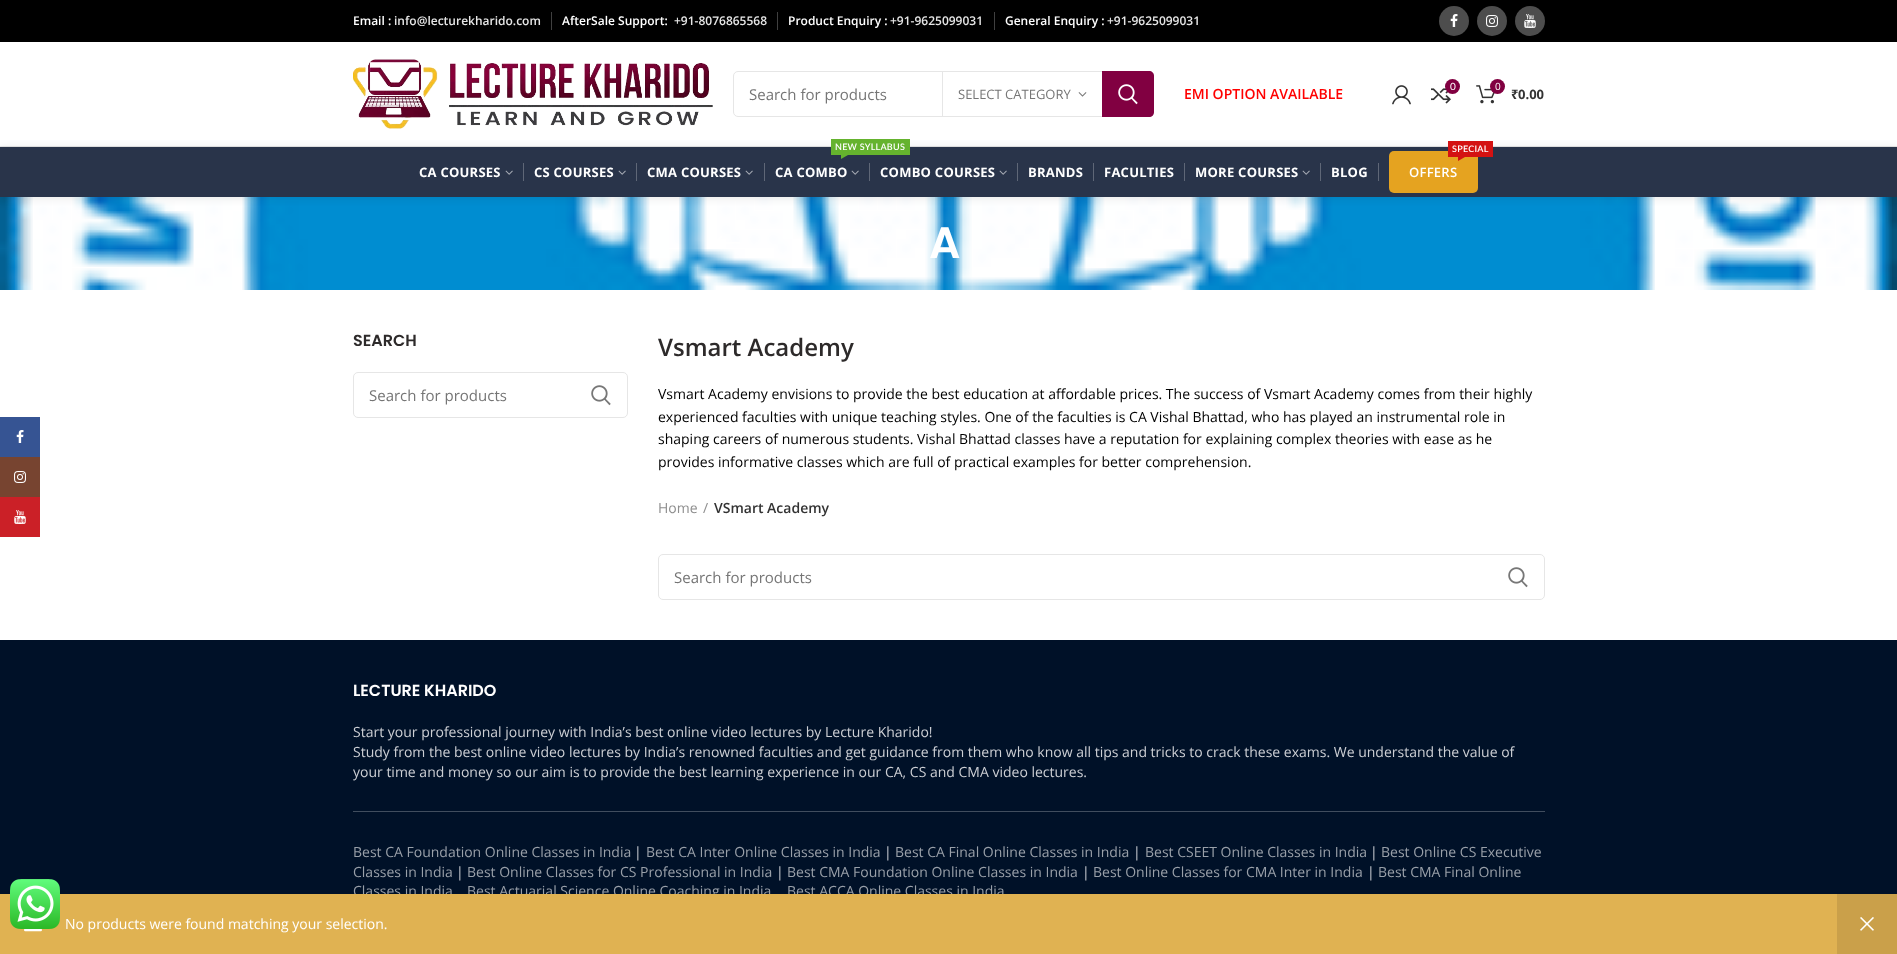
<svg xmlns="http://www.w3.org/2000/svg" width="1897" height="954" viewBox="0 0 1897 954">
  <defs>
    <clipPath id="clip1"><rect x="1" y="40" width="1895" height="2"/></clipPath>
  </defs>
  <rect width="100%" height="100%" fill="rgb(255,255,255)"/>
  <rect x="0" y="417" width="40" height="40" fill="rgb(54,84,147)"/>
  <image x="16" y="430" width="8" height="13" href="pic1.png"/>
  <rect x="0" y="457" width="40" height="40" fill="rgb(119,68,48)"/>
  <image x="14" y="471" width="12" height="12" href="pic2.png"/>
  <rect x="0" y="497" width="40" height="40" fill="rgb(203,32,39)"/>
  <image x="14" y="510" width="12" height="14" href="pic3.png"/>
  <rect x="0" y="0" width="1897" height="42" fill="rgb(0,0,0)"/>
  <text x="353" y="25" font-family="Open Sans" font-size="12" font-weight="600" fill="rgb(255,255,255)">Email :</text>
  <text x="394" y="25" font-family="Open Sans" font-size="12" font-weight="600" fill="rgb(230,230,230)">info@lecturekharido.com</text>
  <rect x="551" y="12" width="1" height="18" fill="rgb(64,64,64)"/>
  <text x="562" y="25" font-family="Open Sans" font-size="12" font-weight="600" fill="rgb(255,255,255)">AfterSale Support:</text>
  <text x="674" y="25" font-family="Open Sans" font-size="12" font-weight="600" fill="rgb(230,230,230)">+91-8076865568</text>
  <rect x="777" y="12" width="1" height="18" fill="rgb(64,64,64)"/>
  <text x="788" y="25" font-family="Open Sans" font-size="12" font-weight="600" fill="rgb(255,255,255)">Product Enquiry :</text>
  <text x="890" y="25" font-family="Open Sans" font-size="12" font-weight="600" fill="rgb(230,230,230)">+91-9625099031</text>
  <rect x="994" y="12" width="1" height="18" fill="rgb(64,64,64)"/>
  <text x="1005" y="25" font-family="Open Sans" font-size="12" font-weight="600" fill="rgb(255,255,255)">General Enquiry :</text>
  <text x="1107" y="25" font-family="Open Sans" font-size="12" font-weight="600" fill="rgb(230,230,230)">+91-9625099031</text>
  <g clip-path="url(#clip1)">
    <rect x="0" y="43" width="1897" height="105" fill="rgba(0,0,0,0.1)" filter="blur(4px)"/>
  </g>
  <circle cx="1454" cy="21" r="15" fill="rgb(77,77,77)"/>
  <image x="1450" y="14" width="8" height="13" href="pic4.png"/>
  <circle cx="1492" cy="21" r="15" fill="rgb(77,77,77)"/>
  <image x="1486" y="15" width="12" height="12" href="pic5.png"/>
  <circle cx="1530" cy="21" r="15" fill="rgb(77,77,77)"/>
  <image x="1524" y="14" width="12" height="14" href="pic6.png"/>
  <rect x="0" y="146" width="1897" height="1" fill="rgb(230,230,230)"/>
  <image x="353" y="59" width="360" height="70" href="pic7.png"/>
  <rect x="733.5" y="71.5" width="420" height="45" rx="4.5" fill="none" stroke="rgb(230,230,230)"/>
  <text x="749" y="100" font-family="Open Sans" font-size="15" fill="rgb(117,117,117)">Search for products</text>
  <rect x="942" y="72" width="1" height="44" fill="rgb(230,230,230)"/>
  <text x="958" y="99" font-family="Open Sans" font-size="13" fill="rgb(117,117,117)">SELECT CATEGORY</text>
  <image x="1078" y="92" width="9" height="5" href="pic8.png"/>
  <path d="M1102 71H1149C1152 71 1154 73 1154 76V112C1154 115 1152 117 1149 117H1102Z" fill="rgb(129,0,65)"/>
  <image x="1118" y="84" width="20" height="21" href="pic9.png"/>
  <text x="1184" y="99" font-family="Open Sans" font-size="14" font-weight="600" fill="rgb(255,0,0)">EMI OPTION AVAILABLE</text>
  <image x="1392" y="85" width="19" height="20" href="pic10.png"/>
  <image x="1431" y="85" width="20" height="19" href="pic11.png"/>
  <circle cx="1452.5" cy="86.5" r="7.5" fill="rgb(129,0,65)"/>
  <text x="1450" y="90" font-family="Lato" font-size="10" fill="rgb(255,255,255)">0</text>
  <image x="1476" y="85" width="19" height="19" href="pic12.png"/>
  <circle cx="1497.5" cy="86.5" r="7.5" fill="rgb(129,0,65)"/>
  <text x="1495" y="90" font-family="Open Sans" font-size="10" fill="rgb(255,255,255)">0</text>
  <text x="1511" y="99" font-family="Noto Sans" font-size="13" font-weight="bold" fill="rgb(51,51,51)">₹</text>
  <text x="1518" y="99" font-family="Open Sans" font-size="13" font-weight="bold" fill="rgb(51,51,51)">0.00</text>
  <rect x="0" y="197" width="1897" height="93" fill="rgb(10,10,10)"/>
  <image x="0" y="197" width="1897" height="93" href="pic14.png"/>
  <rect x="0" y="148" width="1897" height="50" fill="rgba(0,0,0,0.1)" filter="blur(4px)"/>
  <rect x="0" y="147" width="1897" height="50" fill="rgb(41,52,74)"/>
  <text x="419" y="177" font-family="Open Sans" font-size="13" font-weight="bold" letter-spacing="0.25" fill="rgb(255,255,255)">CA COURSES</text>
  <image x="505" y="170" width="8" height="5" href="pic13.png"/>
  <rect x="523" y="163" width="1" height="18" fill="rgb(95,103,119)"/>
  <text x="534" y="177" font-family="Open Sans" font-size="13" font-weight="bold" letter-spacing="0.25" fill="rgb(255,255,255)">CS COURSES</text>
  <image x="618" y="170" width="8" height="5" href="pic13.png"/>
  <rect x="636" y="163" width="1" height="18" fill="rgb(95,103,119)"/>
  <text x="647" y="177" font-family="Open Sans" font-size="13" font-weight="bold" letter-spacing="0.25" fill="rgb(255,255,255)">CMA COURSES</text>
  <image x="745" y="170" width="8" height="5" href="pic13.png"/>
  <rect x="764" y="163" width="1" height="18" fill="rgb(95,103,119)"/>
  <rect x="831" y="139" width="79" height="16" fill="rgb(101,179,46)"/>
  <text x="835" y="150" font-family="Lato" font-size="9" font-weight="600" letter-spacing="0.25" fill="rgb(255,255,255)">NEW SYLLABUS</text>
  <path d="M841 155H848L841 159Z" fill="rgb(101,179,46)"/>
  <text x="775" y="177" font-family="Open Sans" font-size="13" font-weight="bold" letter-spacing="0.25" fill="rgb(255,255,255)">CA COMBO</text>
  <image x="851" y="170" width="8" height="5" href="pic13.png"/>
  <rect x="869" y="163" width="1" height="18" fill="rgb(95,103,119)"/>
  <text x="880" y="177" font-family="Open Sans" font-size="13" font-weight="bold" letter-spacing="0.25" fill="rgb(255,255,255)">COMBO COURSES</text>
  <image x="999" y="170" width="8" height="5" href="pic13.png"/>
  <rect x="1017" y="163" width="1" height="18" fill="rgb(95,103,119)"/>
  <text x="1028" y="177" font-family="Open Sans" font-size="13" font-weight="bold" letter-spacing="0.25" fill="rgb(255,255,255)">BRANDS</text>
  <rect x="1093" y="163" width="1" height="18" fill="rgb(95,103,119)"/>
  <text x="1104" y="177" font-family="Open Sans" font-size="13" font-weight="bold" letter-spacing="0.25" fill="rgb(255,255,255)">FACULTIES</text>
  <rect x="1184" y="163" width="1" height="18" fill="rgb(95,103,119)"/>
  <text x="1195" y="177" font-family="Open Sans" font-size="13" font-weight="bold" letter-spacing="0.25" fill="rgb(255,255,255)">MORE COURSES</text>
  <image x="1302" y="170" width="8" height="5" href="pic13.png"/>
  <rect x="1320" y="163" width="1" height="18" fill="rgb(95,103,119)"/>
  <text x="1331" y="177" font-family="Open Sans" font-size="13" font-weight="bold" letter-spacing="0.25" fill="rgb(255,255,255)">BLOG</text>
  <rect x="1378" y="163" width="1" height="18" fill="rgb(95,103,119)"/>
  <rect x="1389" y="151" width="89" height="42" rx="5" fill="rgb(229,163,32)"/>
  <rect x="1448" y="141" width="45" height="16" fill="rgb(212,18,18)"/>
  <text x="1452" y="152" font-family="Lato" font-size="9" font-weight="600" letter-spacing="0.25" fill="rgb(255,255,255)">SPECIAL</text>
  <path d="M1458 157H1465L1458 161Z" fill="rgb(212,18,18)"/>
  <text x="1409" y="177" font-family="Open Sans" font-size="13" font-weight="600" letter-spacing="0.25" fill="rgb(255,255,255)">OFFERS</text>
  <path d="M740 242V243.5H717L722.5 248.5L721 249.5L714 242.5L721 235.5L722.5 236.5L717 242Z" fill="rgb(255,255,255)"/>
  <text x="929" y="258" font-family="Poppins" font-size="44" font-weight="600" fill="rgb(255,255,255)">A</text>
  <text x="353" y="346" font-family="Poppins" font-size="16" font-weight="600" fill="rgb(45,42,42)">SEARCH</text>
  <rect x="353.5" y="372.5" width="274" height="45" rx="4.5" fill="none" stroke="rgb(230,230,230)"/>
  <text x="369" y="401" font-family="Open Sans" font-size="15" fill="rgb(117,117,117)">Search for products</text>
  <image x="591" y="385" width="20" height="21" href="pic15.png"/>
  <text x="658" y="356" font-family="Open Sans" font-size="24" font-weight="600" fill="rgb(45,42,42)">Vsmart Academy</text>
  <g font-family="Open Sans" font-size="14" fill="rgb(0,0,0)">
    <text>
      <tspan x="658" y="399">Vsmart Academy envisions to provide the best education at affordable prices. The success of Vsmart Academy comes from their highly</tspan>
      <tspan x="658" y="422">experienced faculties with unique teaching styles. One of the faculties is CA Vishal Bhattad, who has played an instrumental role in</tspan>
      <tspan x="658" y="444">shaping careers of numerous students. Vishal Bhattad classes have a reputation for explaining complex theories with ease as he</tspan>
      <tspan x="658" y="467">provides informative classes which are full of practical examples for better comprehension.</tspan>
    </text>
  </g>
  <g font-family="Open Sans" font-size="14" fill="rgb(142,142,142)">
    <text x="658" y="513">Home</text>
    <text x="703" y="513">/</text>
  </g>
  <text x="714" y="513" font-family="Open Sans" font-size="14" font-weight="600" fill="rgb(51,51,51)">VSmart Academy</text>
  <rect x="658.5" y="554.5" width="886" height="45" rx="4.5" fill="none" stroke="rgb(230,230,230)"/>
  <text x="674" y="583" font-family="Open Sans" font-size="15" fill="rgb(117,117,117)">Search for products</text>
  <image x="1508" y="567" width="20" height="21" href="pic15.png"/>
  <rect x="0" y="640" width="1897" height="254" fill="rgb(0,17,40)"/>
  <g font-family="Open Sans" font-size="14" fill="rgb(153,160,169)">
    <text x="353" y="896">Classes in India</text>
    <text x="467" y="896">Best Actuarial Science Online Coaching in India</text>
    <text x="787" y="896">Best ACCA Online Classes in India</text>
  </g>
  <rect x="0" y="894" width="1837" height="60" fill="rgb(224,178,82)"/>
  <image x="24" y="929" width="18" height="3" href="pic16.png"/>
  <text x="65" y="929" font-family="Open Sans" font-size="14" fill="rgb(255,255,255)">No products were found matching your selection.</text>
  <rect x="1837" y="894" width="60" height="60" fill="rgb(202,160,74)"/>
  <image x="1860" y="917" width="14" height="14" href="pic17.png"/>
  <rect x="353" y="811" width="1192" height="1" fill="rgb(64,77,94)"/>
  <text x="353" y="696" font-family="Poppins" font-size="16" font-weight="600" fill="rgb(255,255,255)">LECTURE KHARIDO</text>
  <g font-family="Open Sans" font-size="14" fill="rgb(204,207,212)">
    <text>
      <tspan x="353" y="737">Start your professional journey with India’s best online video lectures by Lecture Kharido!</tspan>
      <tspan x="353" y="757">Study from the best online video lectures by India’s renowned faculties and get guidance from them who know all tips and tricks to crack these exams. We understand the value of</tspan>
      <tspan x="353" y="777">your time and money so our aim is to provide the best learning experience in our CA, CS and CMA video lectures.</tspan>
    </text>
  </g>
  <text x="353" y="857" font-family="Open Sans" font-size="14" fill="rgb(153,160,169)">Best CA Foundation Online Classes in India</text>
  <text x="634" y="857" font-family="Open Sans" font-size="14" fill="rgb(204,207,212)">|</text>
  <text x="646" y="857" font-family="Open Sans" font-size="14" fill="rgb(153,160,169)">Best CA Inter Online Classes in India</text>
  <text x="884" y="857" font-family="Open Sans" font-size="14" fill="rgb(204,207,212)">|</text>
  <text x="895" y="857" font-family="Open Sans" font-size="14" fill="rgb(153,160,169)">Best CA Final Online Classes in India</text>
  <text x="1133" y="857" font-family="Open Sans" font-size="14" fill="rgb(204,207,212)">|</text>
  <text x="1145" y="857" font-family="Open Sans" font-size="14" fill="rgb(153,160,169)">Best CSEET Online Classes in India</text>
  <text x="1370" y="857" font-family="Open Sans" font-size="14" fill="rgb(204,207,212)">|</text>
  <g font-family="Open Sans" font-size="14" fill="rgb(153,160,169)">
    <text x="1381" y="857">Best Online CS Executive</text>
    <text x="353" y="877">Classes in India</text>
  </g>
  <text x="456" y="877" font-family="Open Sans" font-size="14" fill="rgb(204,207,212)">|</text>
  <text x="467" y="877" font-family="Open Sans" font-size="14" fill="rgb(153,160,169)">Best Online Classes for CS Professional in India</text>
  <text x="776" y="877" font-family="Open Sans" font-size="14" fill="rgb(204,207,212)">|</text>
  <text x="787" y="877" font-family="Open Sans" font-size="14" fill="rgb(153,160,169)">Best CMA Foundation Online Classes in India</text>
  <text x="1082" y="877" font-family="Open Sans" font-size="14" fill="rgb(204,207,212)">|</text>
  <text x="1093" y="877" font-family="Open Sans" font-size="14" fill="rgb(153,160,169)">Best Online Classes for CMA Inter in India</text>
  <text x="1367" y="877" font-family="Open Sans" font-size="14" fill="rgb(204,207,212)">|</text>
  <text x="1378" y="877" font-family="Open Sans" font-size="14" fill="rgb(153,160,169)">Best CMA Final Online</text>
  <image x="10" y="879" width="50" height="50" href="pic18.png"/>
</svg>
